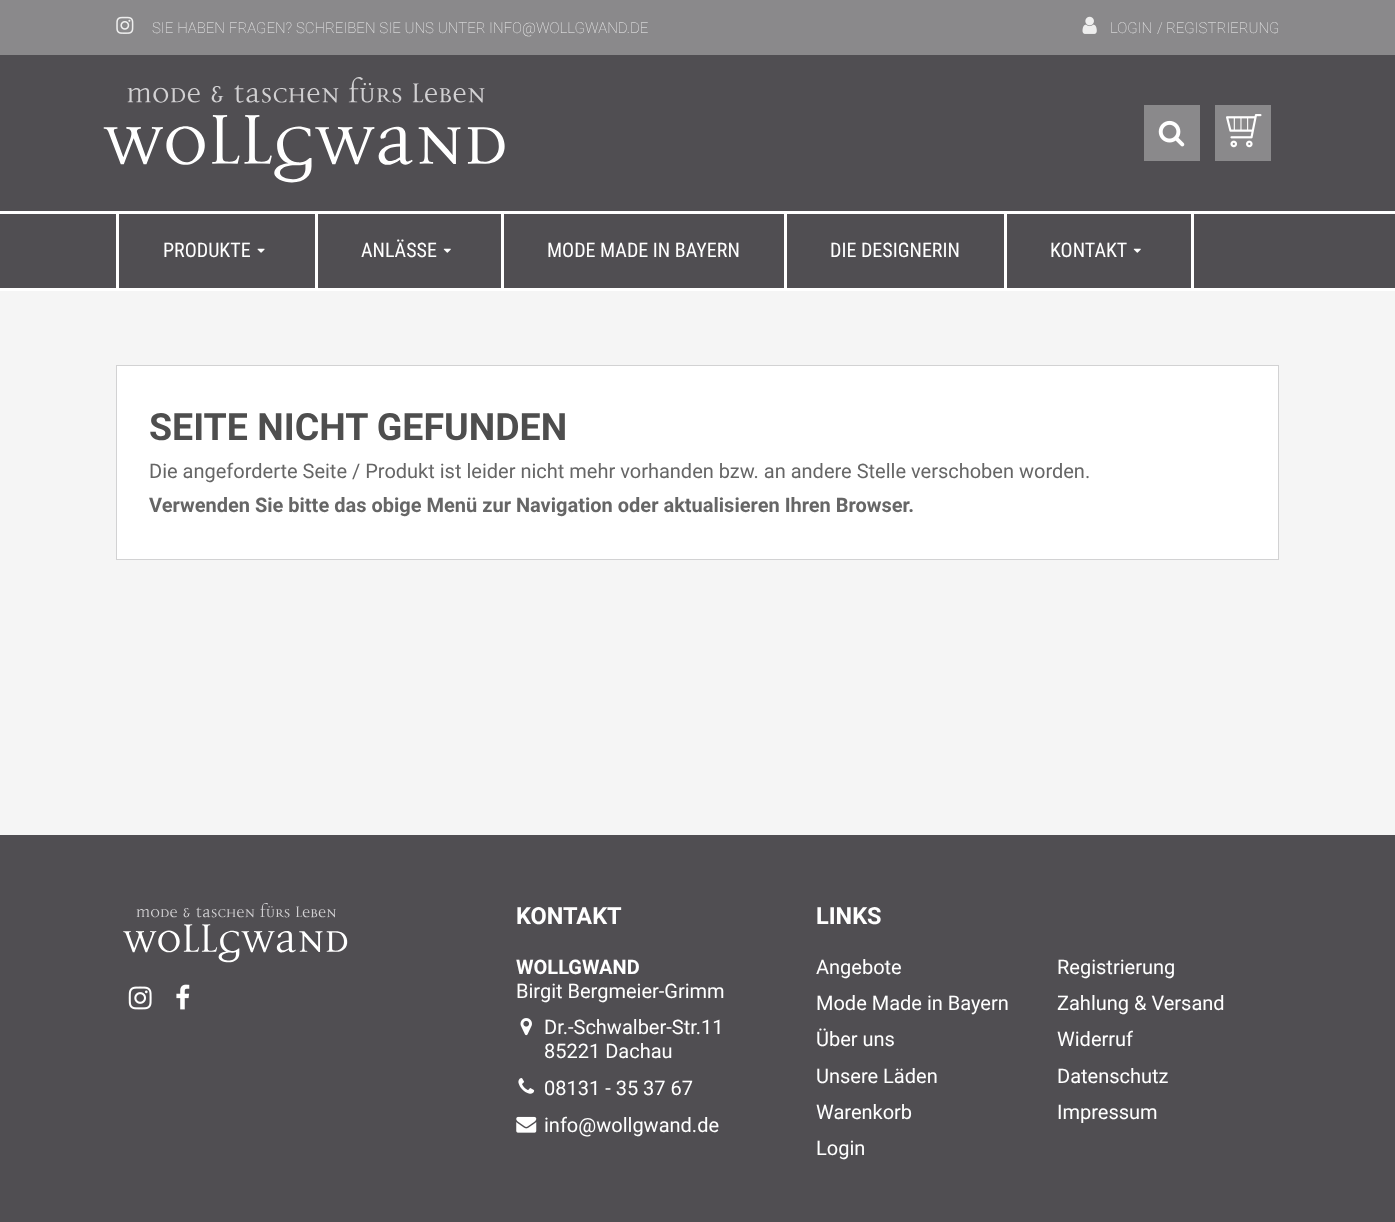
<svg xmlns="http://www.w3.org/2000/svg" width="1395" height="1222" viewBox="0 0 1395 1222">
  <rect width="100%" height="100%" fill="rgb(245,245,245)"/>
  <rect x="0" y="0" width="1395" height="55" fill="rgb(138,137,139)"/>
  <image x="116" y="16" width="18" height="18" href="pic1.png"/>
  <g font-family="Roboto" font-size="15" font-weight="100" fill="rgb(238,238,238)">
    <text x="152" y="33" word-spacing="0.25">SIE HABEN FRAGEN? SCHREIBEN SIE UNS UNTER</text>
    <text x="489" y="33">INFO@WOLLGWAND.DE</text>
  </g>
  <image x="1082" y="16" width="15" height="18" href="pic2.png"/>
  <g font-family="Roboto" font-size="15" font-weight="100" fill="rgb(238,238,238)">
    <text x="1110" y="33">LOGIN</text>
    <text x="1157" y="33">/</text>
    <text x="1166" y="33">REGISTRIERUNG</text>
  </g>
  <rect x="0" y="55" width="1395" height="156" fill="rgb(80,78,82)"/>
  <image x="103" y="77" width="402" height="106" href="pic3.png"/>
  <rect x="1144" y="105" width="56" height="56" fill="rgb(138,137,139)"/>
  <image x="1158" y="120" width="27" height="27" href="pic4.png"/>
  <rect x="1215" y="105" width="56" height="56" fill="rgb(138,137,139)"/>
  <image x="1226" y="114" width="36" height="34" href="pic5.png"/>
  <rect x="0" y="214" width="1395" height="74" fill="rgb(80,78,82)"/>
  <rect x="0" y="211" width="1395" height="3" fill="rgb(255,255,255)"/>
  <rect x="0" y="288" width="1395" height="3" fill="rgb(255,255,255)"/>
  <rect x="116" y="214" width="3" height="74" fill="rgb(255,255,255)"/>
  <text x="163" y="257" font-family="Roboto Condensed" font-size="20" fill="rgb(255,255,255)">PRODUKTE</text>
  <image x="257" y="248" width="8" height="5" href="pic6.png"/>
  <rect x="315" y="214" width="3" height="74" fill="rgb(255,255,255)"/>
  <text x="361" y="257" font-family="Roboto Condensed" font-size="20" fill="rgb(255,255,255)">ANLÄSSE</text>
  <image x="443" y="248" width="8" height="5" href="pic7.png"/>
  <rect x="501" y="214" width="3" height="74" fill="rgb(255,255,255)"/>
  <text x="547" y="257" font-family="Roboto Condensed" font-size="20" fill="rgb(255,255,255)">MODE MADE IN BAYERN</text>
  <rect x="784" y="214" width="3" height="74" fill="rgb(255,255,255)"/>
  <text x="830" y="257" font-family="Roboto Condensed" font-size="20" fill="rgb(255,255,255)">DIE DESIGNERIN</text>
  <rect x="1191" y="214" width="3" height="74" fill="rgb(255,255,255)"/>
  <rect x="1004" y="214" width="3" height="74" fill="rgb(255,255,255)"/>
  <text x="1050" y="257" font-family="Roboto Condensed" font-size="20" fill="rgb(255,255,255)">KONTAKT</text>
  <image x="1133" y="248" width="8" height="5" href="pic7.png"/>
  <rect x="116.5" y="365.5" width="1162" height="194" fill="rgb(255,255,255)" stroke="rgb(210,210,211)"/>
  <text x="149" y="440" font-family="Roboto" font-size="37.5" font-weight="bold" fill="rgb(78,78,78)">SEITE NICHT GEFUNDEN</text>
  <text x="149" y="478" font-family="Roboto" font-size="20" fill="rgb(102,102,102)">Die angeforderte Seite / Produkt ist leider nicht mehr vorhanden bzw. an andere Stelle verschoben worden.</text>
  <text x="149" y="512" font-family="'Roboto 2'" font-size="20" font-weight="bold" fill="rgb(102,102,102)">Verwenden Sie bitte das obige Menü zur Navigation oder aktualisieren Ihren Browser.</text>
  <rect x="0" y="835" width="1395" height="387" fill="rgb(80,78,82)"/>
  <image x="123" y="903" width="225" height="60" href="pic8.png"/>
  <image x="128" y="986" width="24" height="24" href="pic9.png"/>
  <image x="176" y="984" width="14" height="26" href="pic10.png"/>
  <text x="516" y="924" font-family="Roboto" font-size="23.5" font-weight="bold" fill="rgb(255,255,255)">KONTAKT</text>
  <text x="516" y="974" font-family="'Roboto 2'" font-size="20" font-weight="bold" fill="rgb(255,255,255)">WOLLGWAND</text>
  <text x="516" y="998" font-family="Roboto" font-size="20" fill="rgb(255,255,255)">Birgit Bergmeier-Grimm</text>
  <image x="520" y="1018" width="12" height="18" href="pic11.png"/>
  <g font-family="Roboto" font-size="20" fill="rgb(255,255,255)">
    <text>
      <tspan x="544" y="1034">Dr.-Schwalber-Str.11</tspan>
      <tspan x="544" y="1058">85221 Dachau</tspan>
    </text>
  </g>
  <image x="518" y="1078" width="17" height="16" href="pic12.png"/>
  <text x="544" y="1095" font-family="Roboto" font-size="20" fill="rgb(255,255,255)">08131 - 35 37 67</text>
  <image x="516" y="1116" width="21" height="17" href="pic13.png"/>
  <text x="544" y="1132" font-family="Roboto" font-size="20" fill="rgb(255,255,255)">info@wollgwand.de</text>
  <text x="816" y="924" font-family="Roboto" font-size="23.5" font-weight="bold" fill="rgb(255,255,255)">LINKS</text>
  <g font-family="Roboto" font-size="20" fill="rgb(255,255,255)">
    <text x="816" y="974">Angebote</text>
    <text x="1057" y="974">Registrierung</text>
    <text x="816" y="1010">Mode Made in Bayern</text>
    <text x="1057" y="1010">Zahlung &amp; Versand</text>
    <text x="816" y="1046">Über uns</text>
    <text x="1057" y="1046">Widerruf</text>
    <text x="816" y="1083">Unsere Läden</text>
    <text x="1057" y="1083">Datenschutz</text>
    <text x="816" y="1119">Warenkorb</text>
    <text x="1057" y="1119">Impressum</text>
    <text x="816" y="1155">Login</text>
  </g>
</svg>
